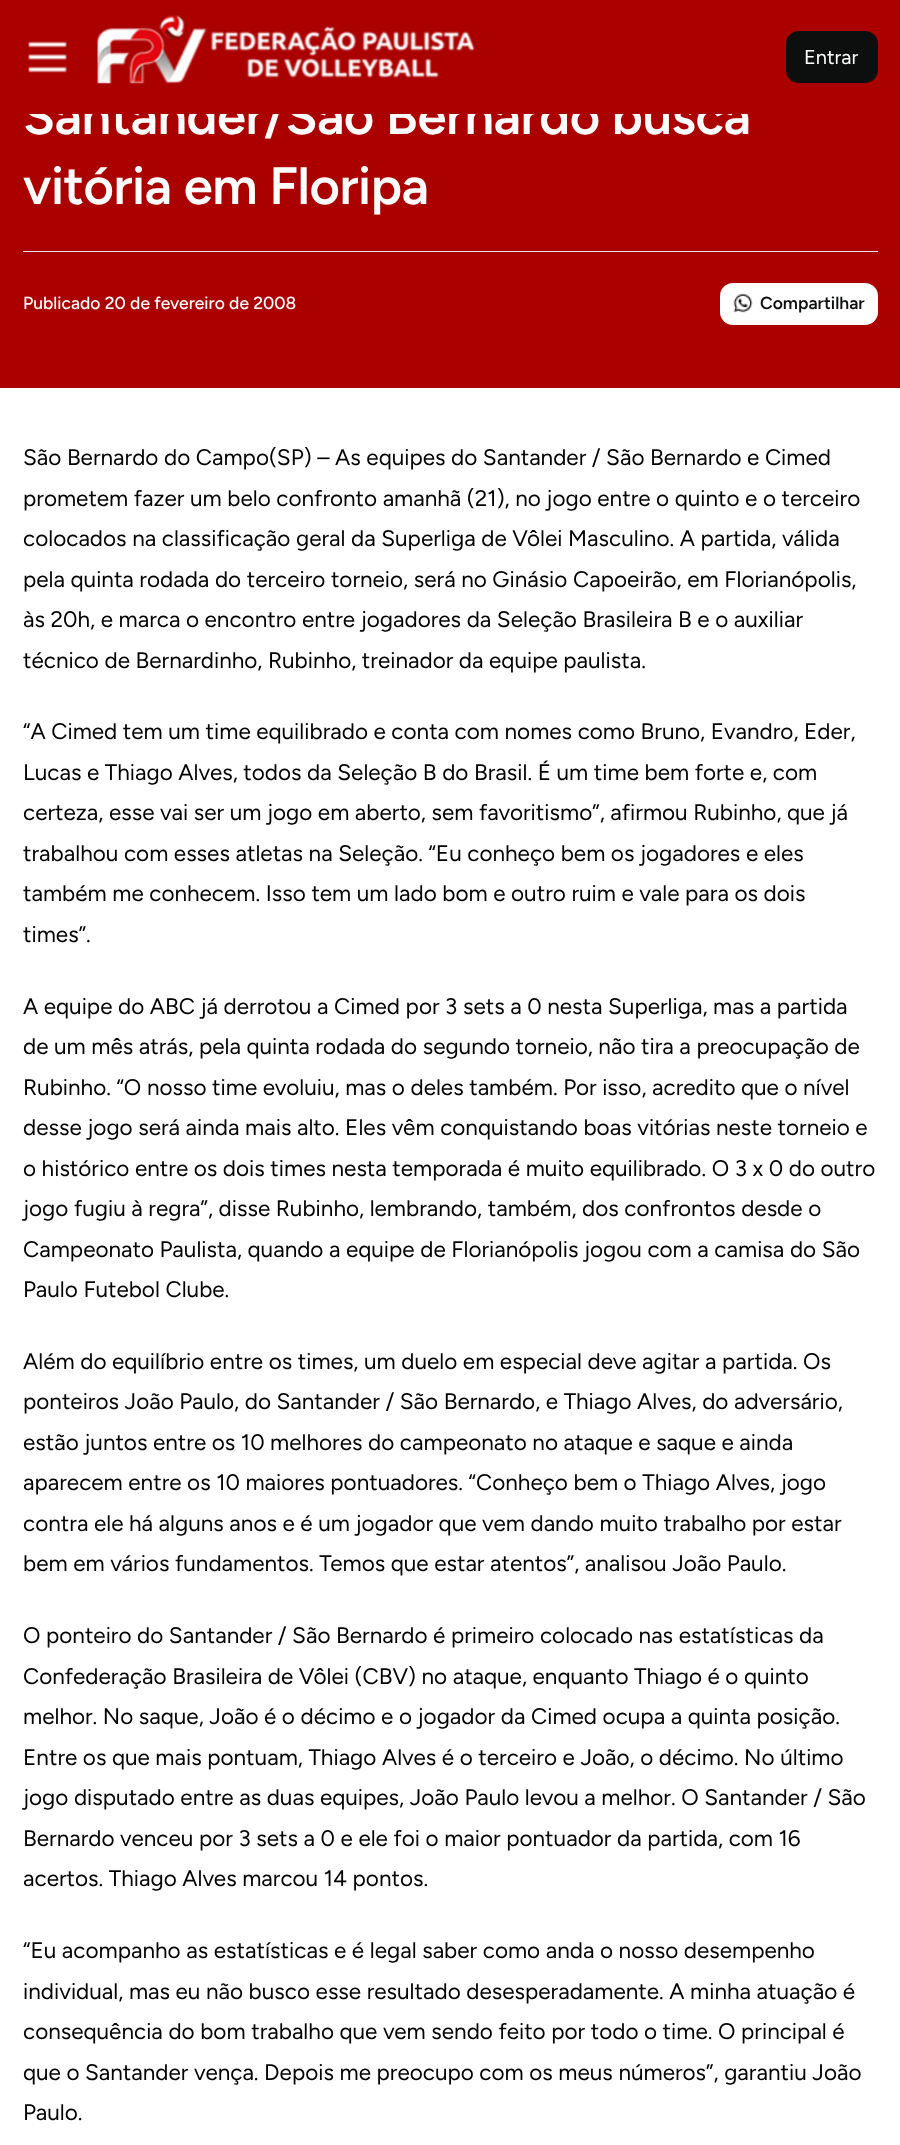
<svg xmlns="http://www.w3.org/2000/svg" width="900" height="2145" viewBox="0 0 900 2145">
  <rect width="100%" height="100%" fill="rgb(255,255,255)"/>
  <rect x="0" y="114" width="900" height="274" fill="rgb(171,0,0)"/>
  <text x="23" y="134" font-family="Figtree" font-size="52.5" font-weight="600" letter-spacing="-0.5" fill="rgb(255,255,255)">Santander/São Bernardo busca</text>
  <rect x="0" y="0" width="900" height="114" fill="rgb(171,0,0)"/>
  <image x="28" y="41" width="39" height="32" href="pic1.png"/>
  <image x="97" y="14" width="378" height="70" href="pic2.png"/>
  <rect x="786" y="31" width="92" height="52" rx="13" fill="rgb(13,14,14)"/>
  <text x="804" y="64" font-family="Figtree" font-size="20" fill="rgb(255,255,255)">Entrar</text>
  <text x="23" y="204" font-family="Figtree" font-size="52.5" font-weight="600" letter-spacing="-0.5" fill="rgb(255,255,255)">vitória em Floripa</text>
  <rect x="23" y="251" width="855" height="1" fill="rgb(229,229,229)"/>
  <text x="23" y="309" font-family="Figtree" font-size="17.5" font-weight="500" fill="rgb(255,255,255)">Publicado 20 de fevereiro de 2008</text>
  <rect x="720" y="283" width="158" height="42" rx="13" fill="rgb(255,255,255)"/>
  <image x="733" y="293" width="20" height="20" href="pic3.png"/>
  <text x="760" y="309" font-family="Figtree" font-size="17.5" font-weight="600" fill="rgb(13,14,14)">Compartilhar</text>
  <g font-family="Figtree" font-size="22.5" fill="rgb(0,0,0)">
    <text>
      <tspan x="23" y="465">São Bernardo do Campo(SP) – As equipes do Santander / São Bernardo e Cimed</tspan>
      <tspan x="23" y="506">prometem fazer um belo confronto amanhã (21), no jogo entre o quinto e o terceiro</tspan>
      <tspan x="23" y="546">colocados na classificação geral da Superliga de Vôlei Masculino. A partida, válida</tspan>
      <tspan x="23" y="587">pela quinta rodada do terceiro torneio, será no Ginásio Capoeirão, em Florianópolis,</tspan>
      <tspan x="23" y="627">às 20h, e marca o encontro entre jogadores da Seleção Brasileira B e o auxiliar</tspan>
      <tspan x="23" y="668">técnico de Bernardinho, Rubinho, treinador da equipe paulista.</tspan>
    </text>
    <text>
      <tspan x="23" y="739">“A Cimed tem um time equilibrado e conta com nomes como Bruno, Evandro, Eder,</tspan>
      <tspan x="23" y="780">Lucas e Thiago Alves, todos da Seleção B do Brasil. É um time bem forte e, com</tspan>
      <tspan x="23" y="820">certeza, esse vai ser um jogo em aberto, sem favoritismo”, afirmou Rubinho, que já</tspan>
      <tspan x="23" y="861">trabalhou com esses atletas na Seleção. “Eu conheço bem os jogadores e eles</tspan>
      <tspan x="23" y="901">também me conhecem. Isso tem um lado bom e outro ruim e vale para os dois</tspan>
      <tspan x="23" y="942">times”.</tspan>
    </text>
    <text>
      <tspan x="23" y="1014">A equipe do ABC já derrotou a Cimed por 3 sets a 0 nesta Superliga, mas a partida</tspan>
      <tspan x="23" y="1054">de um mês atrás, pela quinta rodada do segundo torneio, não tira a preocupação de</tspan>
      <tspan x="23" y="1095">Rubinho. “O nosso time evoluiu, mas o deles também. Por isso, acredito que o nível</tspan>
      <tspan x="23" y="1135">desse jogo será ainda mais alto. Eles vêm conquistando boas vitórias neste torneio e</tspan>
      <tspan x="23" y="1176">o histórico entre os dois times nesta temporada é muito equilibrado. O 3 x 0 do outro</tspan>
      <tspan x="23" y="1216">jogo fugiu à regra”, disse Rubinho, lembrando, também, dos confrontos desde o</tspan>
      <tspan x="23" y="1257">Campeonato Paulista, quando a equipe de Florianópolis jogou com a camisa do São</tspan>
      <tspan x="23" y="1297">Paulo Futebol Clube.</tspan>
    </text>
    <text>
      <tspan x="23" y="1369">Além do equilíbrio entre os times, um duelo em especial deve agitar a partida. Os</tspan>
      <tspan x="23" y="1409">ponteiros João Paulo, do Santander / São Bernardo, e Thiago Alves, do adversário,</tspan>
      <tspan x="23" y="1450">estão juntos entre os 10 melhores do campeonato no ataque e saque e ainda</tspan>
      <tspan x="23" y="1490">aparecem entre os 10 maiores pontuadores. “Conheço bem o Thiago Alves, jogo</tspan>
      <tspan x="23" y="1531">contra ele há alguns anos e é um jogador que vem dando muito trabalho por estar</tspan>
      <tspan x="23" y="1571">bem em vários fundamentos. Temos que estar atentos”, analisou João Paulo.</tspan>
    </text>
    <text>
      <tspan x="23" y="1643">O ponteiro do Santander / São Bernardo é primeiro colocado nas estatísticas da</tspan>
      <tspan x="23" y="1684">Confederação Brasileira de Vôlei (CBV) no ataque, enquanto Thiago é o quinto</tspan>
      <tspan x="23" y="1724">melhor. No saque, João é o décimo e o jogador da Cimed ocupa a quinta posição.</tspan>
      <tspan x="23" y="1765">Entre os que mais pontuam, Thiago Alves é o terceiro e João, o décimo. No último</tspan>
      <tspan x="23" y="1805">jogo disputado entre as duas equipes, João Paulo levou a melhor. O Santander / São</tspan>
      <tspan x="23" y="1846">Bernardo venceu por 3 sets a 0 e ele foi o maior pontuador da partida, com 16</tspan>
      <tspan x="23" y="1886">acertos. Thiago Alves marcou 14 pontos.</tspan>
    </text>
    <text>
      <tspan x="23" y="1958">“Eu acompanho as estatísticas e é legal saber como anda o nosso desempenho</tspan>
      <tspan x="23" y="1999">individual, mas eu não busco esse resultado desesperadamente. A minha atuação é</tspan>
      <tspan x="23" y="2039">consequência do bom trabalho que vem sendo feito por todo o time. O principal é</tspan>
      <tspan x="23" y="2080">que o Santander vença. Depois me preocupo com os meus números”, garantiu João</tspan>
      <tspan x="23" y="2120">Paulo.</tspan>
    </text>
  </g>
</svg>
